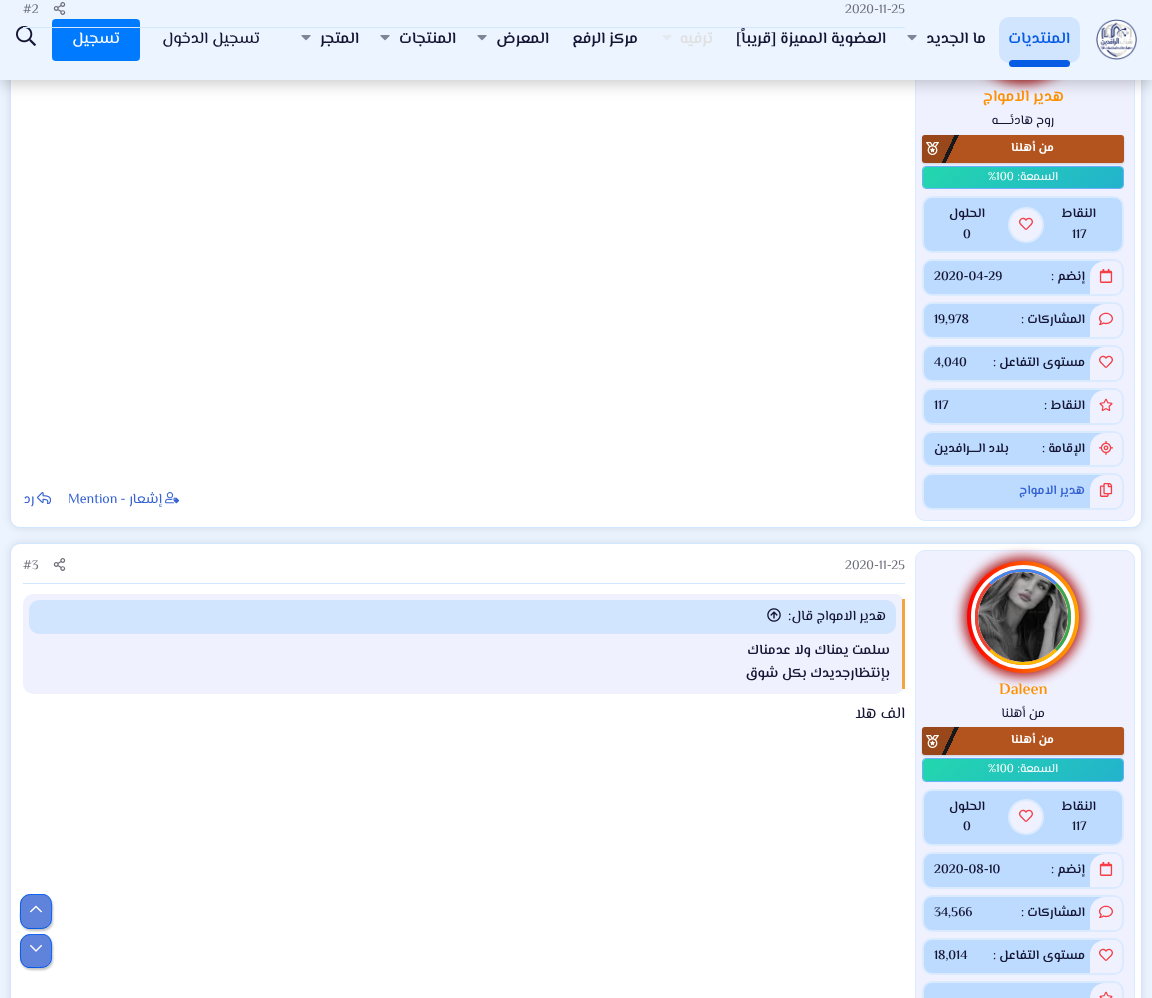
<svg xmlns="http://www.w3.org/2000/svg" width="1152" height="998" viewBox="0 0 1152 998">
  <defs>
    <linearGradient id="g1" gradientUnits="userSpaceOnUse" x1="935" y1="108" x2="1111" y2="190"><stop offset="0" stop-color="rgb(0,0,0)" stop-opacity="0.15"/><stop offset="0.15" stop-color="rgb(0,0,0)" stop-opacity="0.15"/><stop offset="0.15" stop-color="rgb(24,25,29)"/><stop offset="0.17" stop-color="rgb(24,25,29)"/><stop offset="0.17" stop-color="rgb(24,25,29)" stop-opacity="0"/><stop offset="1" stop-color="rgb(0,0,0)" stop-opacity="0"/></linearGradient>
    <linearGradient id="g2" gradientUnits="userSpaceOnUse" x1="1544" y1="430" x2="1102" y2="-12"><stop offset="0" stop-color="rgb(238,119,83)"/><stop offset="0.33" stop-color="rgb(231,60,125)"/><stop offset="0.67" stop-color="rgb(35,167,215)"/><stop offset="1" stop-color="rgb(35,215,173)"/></linearGradient>
    <clipPath id="clip1"><rect x="924" y="261" width="198" height="33" rx="8"/></clipPath>
    <clipPath id="clip2"><rect x="924" y="304" width="198" height="33" rx="8"/></clipPath>
    <clipPath id="clip3"><rect x="924" y="347" width="198" height="33" rx="8"/></clipPath>
    <clipPath id="clip4"><rect x="924" y="390" width="198" height="33" rx="8"/></clipPath>
    <clipPath id="clip5"><rect x="924" y="433" width="198" height="32" rx="8"/></clipPath>
    <clipPath id="clip6"><rect x="924" y="475" width="198" height="33" rx="8"/></clipPath>
    <linearGradient id="g3" gradientUnits="userSpaceOnUse" x1="967" y1="617" x2="1079" y2="617"><stop offset="0" stop-color="rgb(255,0,0)"/><stop offset="1" stop-color="rgb(255,166,0)"/></linearGradient>
    <linearGradient id="g4" gradientUnits="userSpaceOnUse" x1="935" y1="700" x2="1111" y2="782"><stop offset="0" stop-color="rgb(0,0,0)" stop-opacity="0.15"/><stop offset="0.15" stop-color="rgb(0,0,0)" stop-opacity="0.15"/><stop offset="0.15" stop-color="rgb(24,25,29)"/><stop offset="0.17" stop-color="rgb(24,25,29)"/><stop offset="0.17" stop-color="rgb(24,25,29)" stop-opacity="0"/><stop offset="1" stop-color="rgb(0,0,0)" stop-opacity="0"/></linearGradient>
    <linearGradient id="g5" gradientUnits="userSpaceOnUse" x1="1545" y1="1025" x2="1101" y2="581"><stop offset="0" stop-color="rgb(238,119,83)"/><stop offset="0.33" stop-color="rgb(231,60,125)"/><stop offset="0.67" stop-color="rgb(35,167,215)"/><stop offset="1" stop-color="rgb(35,215,173)"/></linearGradient>
    <clipPath id="clip7"><rect x="924" y="854" width="198" height="33" rx="8"/></clipPath>
    <clipPath id="clip8"><rect x="924" y="897" width="198" height="33" rx="8"/></clipPath>
    <clipPath id="clip9"><rect x="924" y="940" width="198" height="33" rx="8"/></clipPath>
    <clipPath id="clip10"><rect x="924" y="983" width="198" height="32" rx="8"/></clipPath>
    <clipPath id="clip11"><path d="M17 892H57V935H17ZM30 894H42C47.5 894 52 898.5 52 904V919C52 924.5 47.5 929 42 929H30C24.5 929 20 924.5 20 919V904C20 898.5 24.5 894 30 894Z" clip-rule="evenodd"/></clipPath>
    <clipPath id="clip12"><path d="M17 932H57V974H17ZM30 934H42C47.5 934 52 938.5 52 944V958C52 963.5 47.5 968 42 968H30C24.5 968 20 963.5 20 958V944C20 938.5 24.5 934 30 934Z" clip-rule="evenodd"/></clipPath>
  </defs>
  <rect width="100%" height="100%" fill="rgb(235,244,255)"/>
  <rect x="10" y="-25" width="1132" height="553" rx="10" fill="rgba(0,0,0,0.1)" filter="blur(5px)"/>
  <rect x="10.5" y="-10.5" width="1131" height="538" rx="9.5" fill="rgb(255,255,255)" stroke="rgb(209,230,255)"/>
  <rect x="915.5" y="-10.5" width="219" height="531" rx="9.5" fill="rgb(240,241,255)" stroke="rgb(219,235,255)"/>
  <rect x="963" y="-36" width="120" height="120" rx="60" fill="rgb(180,34,34)" filter="blur(6px)"/>
  <text x="1064" y="101" font-family="El Messiri" font-size="16" font-weight="600" direction="rtl" fill="rgb(255,145,0)">هدير الامواج</text>
  <text x="1054" y="124" font-family="El Messiri" font-size="13" direction="rtl" fill="rgb(20,20,51)">روح هادئــــــه</text>
  <rect x="922" y="136" width="202" height="28" rx="3" fill="rgba(0,0,0,0.15)" filter="blur(1px)"/>
  <rect x="922" y="135" width="202" height="28" rx="3" fill="rgb(179,84,30)"/>
  <rect x="922" y="135" width="202" height="28" rx="3" fill="url(#g1)"/>
  <text x="1054" y="151" font-family="El Messiri" font-size="12" font-weight="bold" direction="rtl" fill="rgb(255,255,255)">من أهلنا</text>
  <image x="926" y="142" width="13" height="13" href="pic1.png"/>
  <rect x="922.5" y="166.5" width="201" height="22" rx="3.5" fill="none" stroke="rgb(107,174,255)"/>
  <rect x="923" y="167" width="200" height="21" rx="3" fill="url(#g2)"/>
  <text x="1058" y="180" font-family="El Messiri" font-size="12" direction="rtl" fill="rgb(255,255,255)">السمعة:</text>
  <text x="988" y="180" font-family="El Messiri" font-size="12" fill="rgb(255,255,255)">%100</text>
  <rect x="923" y="197" width="200" height="55" rx="9" fill="rgb(189,219,255)" stroke="rgb(219,235,255)" stroke-width="2"/>
  <text x="1096" y="217" font-family="El Messiri" font-size="13" font-weight="600" direction="rtl" fill="rgb(20,20,51)">النقاط</text>
  <text x="1072" y="238" font-family="El Messiri" font-size="13" font-weight="600" fill="rgb(20,20,51)">117</text>
  <circle cx="1026" cy="225" r="17" fill="rgb(240,241,255)" stroke="rgb(219,235,255)" stroke-width="2"/>
  <image x="1019" y="217" width="14" height="13" href="pic2.png"/>
  <text x="985" y="217" font-family="El Messiri" font-size="13" font-weight="600" direction="rtl" fill="rgb(20,20,51)">الحلول</text>
  <text x="963" y="238" font-family="El Messiri" font-size="13" font-weight="600" fill="rgb(20,20,51)">0</text>
  <rect x="923" y="260" width="200" height="35" rx="9" fill="rgb(189,219,255)" stroke="rgb(219,235,255)" stroke-width="2"/>
  <g clip-path="url(#clip1)">
    <path d="M1105 261H1120V294H1090V276C1090 267.5 1096.5 261 1105 261Z" fill="rgb(240,241,255)"/>
  </g>
  <rect x="923" y="303" width="200" height="35" rx="9" fill="rgb(189,219,255)" stroke="rgb(219,235,255)" stroke-width="2"/>
  <g clip-path="url(#clip1)">
    <path d="M1106 261H1121C1129.5 261 1136 267.5 1136 276V295C1136 303.5 1129.5 310 1121 310H1106Z" fill="rgb(240,241,255)"/>
  </g>
  <image x="1099" y="269" width="14" height="14" href="pic3.png"/>
  <text x="1085" y="280" font-family="El Messiri" font-size="13" font-weight="600" direction="rtl" fill="rgb(20,20,51)">إنضم</text>
  <g font-family="El Messiri" font-size="13" font-weight="600" fill="rgb(20,20,51)">
    <text x="1051" y="280">:</text>
    <text x="934" y="280">2020-04-29</text>
  </g>
  <g clip-path="url(#clip2)">
    <path d="M1105 304H1120V337H1090V319C1090 310.5 1096.5 304 1105 304Z" fill="rgb(240,241,255)"/>
  </g>
  <rect x="923" y="346" width="200" height="35" rx="9" fill="rgb(189,219,255)" stroke="rgb(219,235,255)" stroke-width="2"/>
  <g clip-path="url(#clip2)">
    <path d="M1106 304H1121C1129.5 304 1136 310.5 1136 319V337C1136 345.5 1129.5 352 1121 352H1106Z" fill="rgb(240,241,255)"/>
  </g>
  <image x="1099" y="312" width="14" height="13" href="pic4.png"/>
  <text x="1085" y="323" font-family="El Messiri" font-size="13" font-weight="600" direction="rtl" fill="rgb(20,20,51)">المشاركات</text>
  <g font-family="El Messiri" font-size="13" font-weight="600" fill="rgb(20,20,51)">
    <text x="1021" y="323">:</text>
    <text x="934" y="323">19,978</text>
  </g>
  <g clip-path="url(#clip3)">
    <path d="M1105 347H1120V380H1090V362C1090 353.5 1096.5 347 1105 347Z" fill="rgb(240,241,255)"/>
  </g>
  <rect x="923" y="389" width="200" height="35" rx="9" fill="rgb(189,219,255)" stroke="rgb(219,235,255)" stroke-width="2"/>
  <g clip-path="url(#clip3)">
    <path d="M1106 347H1121C1129.5 347 1136 353.5 1136 362V380C1136 388.5 1129.5 395 1121 395H1106Z" fill="rgb(240,241,255)"/>
  </g>
  <image x="1099" y="355" width="14" height="13" href="pic2.png"/>
  <text x="1085" y="366" font-family="El Messiri" font-size="13" font-weight="600" direction="rtl" fill="rgb(20,20,51)">مستوى التفاعل</text>
  <g font-family="El Messiri" font-size="13" font-weight="600" fill="rgb(20,20,51)">
    <text x="993" y="366">:</text>
    <text x="934" y="366">4,040</text>
  </g>
  <g clip-path="url(#clip4)">
    <path d="M1105 390H1120V423H1090V405C1090 396.5 1096.5 390 1105 390Z" fill="rgb(240,241,255)"/>
  </g>
  <rect x="923" y="432" width="200" height="34" rx="9" fill="rgb(189,219,255)" stroke="rgb(219,235,255)" stroke-width="2"/>
  <g clip-path="url(#clip4)">
    <path d="M1106 390H1121C1129.5 390 1136 396.5 1136 405V423C1136 431.5 1129.5 438 1121 438H1106Z" fill="rgb(240,241,255)"/>
  </g>
  <image x="1099" y="398" width="14" height="13" href="pic5.png"/>
  <text x="1085" y="409" font-family="El Messiri" font-size="13" font-weight="600" direction="rtl" fill="rgb(20,20,51)">النقاط</text>
  <g font-family="El Messiri" font-size="13" font-weight="600" fill="rgb(20,20,51)">
    <text x="1044" y="409">:</text>
    <text x="934" y="409">117</text>
  </g>
  <g clip-path="url(#clip5)">
    <path d="M1105 433H1120V465H1090V448C1090 439.5 1096.5 433 1105 433Z" fill="rgb(240,241,255)"/>
  </g>
  <rect x="923" y="474" width="200" height="35" rx="9" fill="rgb(189,219,255)" stroke="rgb(219,235,255)" stroke-width="2"/>
  <g clip-path="url(#clip5)">
    <path d="M1106 433H1121C1129.5 433 1136 439.5 1136 448V466C1136 474.5 1129.5 481 1121 481H1106Z" fill="rgb(240,241,255)"/>
  </g>
  <image x="1099" y="441" width="14" height="14" href="pic6.png"/>
  <text x="1085" y="452" font-family="El Messiri" font-size="13" font-weight="600" direction="rtl" fill="rgb(20,20,51)">الإقامة</text>
  <text x="1042" y="452" font-family="El Messiri" font-size="13" font-weight="600" fill="rgb(20,20,51)">:</text>
  <text x="1009" y="452" font-family="El Messiri" font-size="13" font-weight="600" direction="rtl" fill="rgb(20,20,51)">بلاد الــــرافدين</text>
  <g clip-path="url(#clip6)">
    <path d="M1105 475H1120V508H1090V490C1090 481.5 1096.5 475 1105 475Z" fill="rgb(240,241,255)"/>
    <path d="M1106 475H1121C1129.5 475 1136 481.5 1136 490V509C1136 517.5 1129.5 524 1121 524H1106Z" fill="rgb(240,241,255)"/>
  </g>
  <image x="1099" y="483" width="14" height="14" href="pic7.png"/>
  <text x="1085" y="494" font-family="El Messiri" font-size="13" font-weight="600" direction="rtl" fill="rgb(55,99,210)">هدير الامواج</text>
  <rect x="0" y="4" width="1152" height="80" fill="rgba(0,0,0,0.2)" filter="blur(7.5px)"/>
  <rect x="0" y="0" width="1152" height="80" fill="rgb(235,244,255)"/>
  <text x="886" y="43" font-family="El Messiri" font-size="16" font-weight="600" direction="rtl" fill="rgb(20,20,51)">العضوية المميزة [قريباً]</text>
  <rect x="52" y="19" width="88" height="42" rx="4" fill="rgb(0,123,255)"/>
  <image x="16" y="26" width="20" height="20" href="pic18.png"/>
  <rect x="23" y="27" width="882" height="1" fill="rgb(209,230,255)"/>
  <text x="845" y="13" font-family="El Messiri" font-size="13" fill="rgb(108,108,122)">2020-11-25</text>
  <image x="53" y="2" width="13" height="13" href="pic8.png"/>
  <text x="23" y="13" font-family="El Messiri" font-size="13" fill="rgb(108,108,122)">#2</text>
  <image x="165" y="492" width="15" height="12" href="pic9.png"/>
  <text x="162" y="503" font-family="El Messiri" font-size="14" direction="rtl" fill="rgb(55,99,210)">إشعار -</text>
  <text x="68" y="503" font-family="El Messiri" font-size="14" fill="rgb(55,99,210)">Mention</text>
  <image x="37" y="492" width="14" height="12" href="pic10.png"/>
  <text x="34" y="503" font-family="El Messiri" font-size="14" direction="rtl" fill="rgb(55,99,210)">رد</text>
  <rect x="10" y="543" width="1132" height="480" rx="10" fill="rgba(0,0,0,0.1)" filter="blur(5px)"/>
  <rect x="10.5" y="543.5" width="1131" height="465" rx="9.5" fill="rgb(255,255,255)" stroke="rgb(209,230,255)"/>
  <rect x="23" y="583" width="882" height="1" fill="rgb(209,230,255)"/>
  <text x="845" y="569" font-family="El Messiri" font-size="13" fill="rgb(108,108,122)">2020-11-25</text>
  <image x="53" y="558" width="13" height="13" href="pic11.png"/>
  <text x="23" y="569" font-family="El Messiri" font-size="13" fill="rgb(108,108,122)">#3</text>
  <rect x="23" y="594" width="882" height="100" rx="10" fill="rgb(240,241,255)"/>
  <rect x="902" y="599" width="3" height="90" fill="rgb(245,165,61)"/>
  <rect x="29" y="600" width="867" height="34" rx="10" fill="rgb(210,229,254)"/>
  <text x="886" y="620" font-family="El Messiri" font-size="14" font-weight="500" direction="rtl" fill="rgb(20,20,51)">هدير الامواج قال:</text>
  <image x="767" y="608" width="14" height="14" href="pic12.png"/>
  <g font-family="El Messiri" font-size="14" font-weight="600" direction="rtl" fill="rgb(20,20,51)">
    <text>
      <tspan x="890" y="654">سلمت يمناك ولا عدمناك</tspan>
      <tspan x="890" y="677">بإنتظارجديدك بكل شوق</tspan>
    </text>
  </g>
  <text x="905" y="718" font-family="El Messiri" font-size="16" direction="rtl" fill="rgb(20,20,51)">الف هلا</text>
  <rect x="915.5" y="550.5" width="219" height="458" rx="9.5" fill="rgb(240,241,255)" stroke="rgb(219,235,255)"/>
  <rect x="963" y="557" width="120" height="120" rx="60" fill="rgb(180,34,34)" filter="blur(6px)"/>
  <circle cx="1023" cy="617" r="56" fill="url(#g3)"/>
  <circle cx="1023" cy="617" r="50" fill="none" stroke="rgb(255,255,255)" stroke-width="4"/>
  <path d="M990 584C1008 566 1038 566 1056 584" fill="none" stroke="rgb(67,135,244)" stroke-width="3"/>
  <path d="M1056 584C1074 602 1074 632 1056 650" fill="none" stroke="rgb(52,168,83)" stroke-width="3"/>
  <path d="M1056 650C1038 668 1008 668 990 650" fill="none" stroke="rgb(251,189,4)" stroke-width="3"/>
  <path d="M990 650C972 632 972 602 990 584" fill="none" stroke="rgb(234,67,52)" stroke-width="3"/>
  <circle cx="1023" cy="617" r="45" fill="rgb(255,255,255)"/>
  <image x="978" y="572" width="90" height="90" href="pic13.png"/>
  <text x="999" y="694" font-family="El Messiri" font-size="16" font-weight="600" fill="rgb(255,145,0)">Daleen</text>
  <text x="1045" y="717" font-family="El Messiri" font-size="13" direction="rtl" fill="rgb(20,20,51)">من أهلنا</text>
  <rect x="922" y="728" width="202" height="28" rx="3" fill="rgba(0,0,0,0.15)" filter="blur(1px)"/>
  <rect x="922" y="727" width="202" height="28" rx="3" fill="rgb(179,84,30)"/>
  <rect x="922" y="727" width="202" height="28" rx="3" fill="url(#g4)"/>
  <text x="1054" y="743" font-family="El Messiri" font-size="12" font-weight="bold" direction="rtl" fill="rgb(255,255,255)">من أهلنا</text>
  <image x="926" y="735" width="13" height="13" href="pic1.png"/>
  <rect x="922.5" y="758.5" width="201" height="23" rx="3.5" fill="none" stroke="rgb(107,174,255)"/>
  <rect x="923" y="759" width="200" height="22" rx="3" fill="url(#g5)"/>
  <text x="1058" y="772" font-family="El Messiri" font-size="12" direction="rtl" fill="rgb(255,255,255)">السمعة:</text>
  <text x="988" y="772" font-family="El Messiri" font-size="12" fill="rgb(255,255,255)">%100</text>
  <rect x="923" y="790" width="200" height="55" rx="9" fill="rgb(189,219,255)" stroke="rgb(219,235,255)" stroke-width="2"/>
  <text x="1096" y="810" font-family="El Messiri" font-size="13" font-weight="600" direction="rtl" fill="rgb(20,20,51)">النقاط</text>
  <text x="1072" y="830" font-family="El Messiri" font-size="13" font-weight="600" fill="rgb(20,20,51)">117</text>
  <circle cx="1026" cy="817" r="17" fill="rgb(240,241,255)" stroke="rgb(219,235,255)" stroke-width="2"/>
  <image x="1019" y="809" width="14" height="13" href="pic2.png"/>
  <text x="985" y="810" font-family="El Messiri" font-size="13" font-weight="600" direction="rtl" fill="rgb(20,20,51)">الحلول</text>
  <text x="963" y="830" font-family="El Messiri" font-size="13" font-weight="600" fill="rgb(20,20,51)">0</text>
  <rect x="923" y="853" width="200" height="35" rx="9" fill="rgb(189,219,255)" stroke="rgb(219,235,255)" stroke-width="2"/>
  <g clip-path="url(#clip7)">
    <path d="M1105 854H1120V887H1090V869C1090 860.5 1096.5 854 1105 854Z" fill="rgb(240,241,255)"/>
  </g>
  <rect x="923" y="896" width="200" height="35" rx="9" fill="rgb(189,219,255)" stroke="rgb(219,235,255)" stroke-width="2"/>
  <g clip-path="url(#clip7)">
    <path d="M1106 854H1121C1129.5 854 1136 860.5 1136 869V888C1136 896.5 1129.5 903 1121 903H1106Z" fill="rgb(240,241,255)"/>
  </g>
  <image x="1099" y="862" width="14" height="14" href="pic3.png"/>
  <text x="1085" y="873" font-family="El Messiri" font-size="13" font-weight="600" direction="rtl" fill="rgb(20,20,51)">إنضم</text>
  <g font-family="El Messiri" font-size="13" font-weight="600" fill="rgb(20,20,51)">
    <text x="1051" y="873">:</text>
    <text x="934" y="873">2020-08-10</text>
  </g>
  <g clip-path="url(#clip8)">
    <path d="M1105 897H1120V930H1090V912C1090 903.5 1096.5 897 1105 897Z" fill="rgb(240,241,255)"/>
  </g>
  <rect x="923" y="939" width="200" height="35" rx="9" fill="rgb(189,219,255)" stroke="rgb(219,235,255)" stroke-width="2"/>
  <g clip-path="url(#clip8)">
    <path d="M1106 897H1121C1129.5 897 1136 903.5 1136 912V930C1136 938.5 1129.5 945 1121 945H1106Z" fill="rgb(240,241,255)"/>
  </g>
  <image x="1099" y="905" width="14" height="13" href="pic4.png"/>
  <text x="1085" y="916" font-family="El Messiri" font-size="13" font-weight="600" direction="rtl" fill="rgb(20,20,51)">المشاركات</text>
  <g font-family="El Messiri" font-size="13" font-weight="600" fill="rgb(20,20,51)">
    <text x="1021" y="916">:</text>
    <text x="934" y="916">34,566</text>
  </g>
  <g clip-path="url(#clip9)">
    <path d="M1105 940H1120V973H1090V955C1090 946.5 1096.5 940 1105 940Z" fill="rgb(240,241,255)"/>
  </g>
  <rect x="923" y="982" width="200" height="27" rx="9" fill="rgb(189,219,255)" stroke="rgb(219,235,255)" stroke-width="2"/>
  <g clip-path="url(#clip9)">
    <path d="M1106 940H1121C1129.5 940 1136 946.5 1136 955V973C1136 981.5 1129.5 988 1121 988H1106Z" fill="rgb(240,241,255)"/>
  </g>
  <image x="1099" y="948" width="14" height="13" href="pic2.png"/>
  <text x="1085" y="959" font-family="El Messiri" font-size="13" font-weight="600" direction="rtl" fill="rgb(20,20,51)">مستوى التفاعل</text>
  <g font-family="El Messiri" font-size="13" font-weight="600" fill="rgb(20,20,51)">
    <text x="993" y="959">:</text>
    <text x="934" y="959">18,014</text>
  </g>
  <g clip-path="url(#clip10)">
    <path d="M1105 983H1120V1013H1090V998C1090 989.5 1096.5 983 1105 983Z" fill="rgb(240,241,255)"/>
    <path d="M1106 983H1121C1129.5 983 1136 989.5 1136 998C1136 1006.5 1129.5 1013 1121 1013H1106Z" fill="rgb(240,241,255)"/>
  </g>
  <image x="1099" y="991" width="14" height="7" href="pic14.png"/>
  <image x="1096" y="19" width="41" height="41" href="pic15.png"/>
  <rect x="999" y="17" width="81" height="46" rx="10" fill="rgb(210,229,254)"/>
  <text x="1070" y="43" font-family="El Messiri" font-size="16" font-weight="600" direction="rtl" fill="rgb(6,91,229)">المنتديات</text>
  <rect x="1009" y="60" width="61" height="7" rx="3.5" fill="rgb(6,91,229)"/>
  <text x="986" y="43" font-family="El Messiri" font-size="16" font-weight="600" direction="rtl" fill="rgb(20,20,51)">ما الجديد</text>
  <image x="907" y="35" width="10" height="6" href="pic16.png"/>
  <text x="713" y="43" font-family="El Messiri" font-size="16" font-weight="600" direction="rtl" fill="rgb(224,224,224)">ترفيه</text>
  <image x="662" y="35" width="10" height="5" href="pic17.png"/>
  <g font-family="El Messiri" font-size="16" font-weight="600" direction="rtl" fill="rgb(20,20,51)">
    <text x="638" y="43">مركز الرفع</text>
    <text x="549" y="43">المعرض</text>
  </g>
  <image x="477" y="35" width="10" height="6" href="pic16.png"/>
  <text x="456" y="43" font-family="El Messiri" font-size="16" font-weight="600" direction="rtl" fill="rgb(20,20,51)">المنتجات</text>
  <image x="380" y="35" width="10" height="6" href="pic16.png"/>
  <text x="359" y="43" font-family="El Messiri" font-size="16" font-weight="600" direction="rtl" fill="rgb(20,20,51)">المتجر</text>
  <image x="301" y="35" width="10" height="6" href="pic16.png"/>
  <text x="260" y="43" font-family="El Messiri" font-size="16" font-weight="500" direction="rtl" fill="rgb(20,20,51)">تسجيل الدخول</text>
  <text x="120" y="43" font-family="El Messiri" font-size="16" font-weight="500" direction="rtl" fill="rgb(255,255,255)">تسجيل</text>
  <g clip-path="url(#clip11)">
    <rect x="21" y="896" width="32" height="35" rx="10" fill="rgba(0,0,0,0.25)" filter="blur(1px)"/>
  </g>
  <rect x="20" y="894" width="32" height="35" rx="10" fill="rgba(55,99,210,0.8)"/>
  <path d="M23.5 897.5C26.5 894 31.5 894.5 36 894.5H44C53.5 896.5 51.5 907 51.5 914C51.5 918 52 922.5 48.5 925.5" fill="none" stroke="rgb(11,102,249)"/>
  <path d="M48.5 925.5C45.5 929 40.5 928.5 36 928.5H28C18.5 926.5 20.5 916 20.5 909C20.5 905 20 900.5 23.5 897.5" fill="none" stroke="rgb(6,91,229)"/>
  <image x="30" y="905" width="12" height="8" href="pic19.png"/>
  <g clip-path="url(#clip12)">
    <rect x="21" y="936" width="32" height="34" rx="10" fill="rgba(0,0,0,0.25)" filter="blur(1px)"/>
  </g>
  <rect x="20" y="934" width="32" height="34" rx="10" fill="rgba(55,99,210,0.8)"/>
  <path d="M23.5 937.5C26.5 934 31.5 934.5 36 934.5H44C53 936.5 51.5 946.5 51.5 953.5C51.5 957.5 52 961.5 48.5 964.5" fill="none" stroke="rgb(11,102,249)"/>
  <path d="M48.5 964.5C45.5 968 40.5 967.5 36 967.5H28C19 965.5 20.5 955.5 20.5 948.5C20.5 944.5 20 940.5 23.5 937.5" fill="none" stroke="rgb(6,91,229)"/>
  <image x="30" y="945" width="12" height="7" href="pic20.png"/>
</svg>
